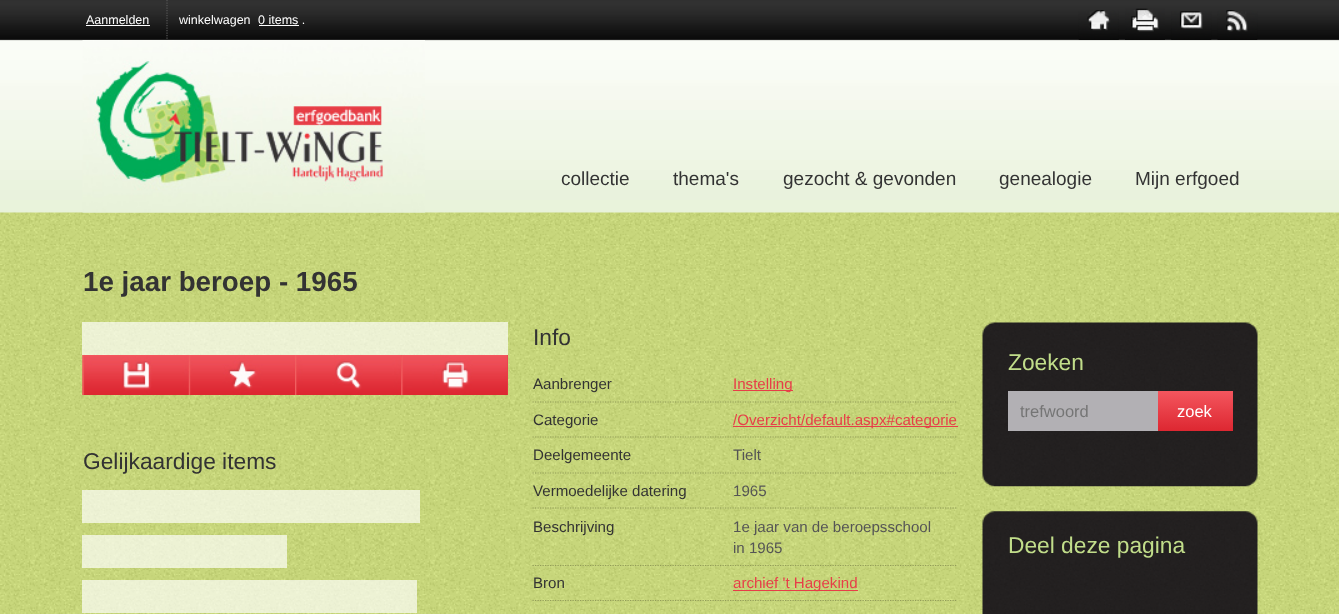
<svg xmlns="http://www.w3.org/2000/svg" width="1339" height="614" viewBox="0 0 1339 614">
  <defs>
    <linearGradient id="g1" gradientUnits="userSpaceOnUse" x1="1195" y1="391" x2="1195" y2="431"><stop offset="0" stop-color="rgb(244,86,94)"/><stop offset="1" stop-color="rgb(221,39,49)"/></linearGradient>
  </defs>
  <rect width="100%" height="100%" fill="rgb(255,255,255)"/>
  <image x="0" y="212" width="1339" height="52" href="pic1.png"/>
  <image x="0" y="0" width="1339" height="213" href="pic2.png"/>
  <path d="M167 0V40" fill="none" stroke="rgb(85,85,85)" stroke-width="1.2" stroke-dasharray="1.25 1.25"/>
  <text x="86" y="24" font-family="Liberation Sans" font-size="12.5" fill="rgb(255,255,255)">Aanmelden</text>
  <rect x="86" y="25" width="64" height="1" fill="rgb(255,255,255)"/>
  <g font-family="Liberation Sans" font-size="12.5" fill="rgb(255,255,255)">
    <text x="179" y="24">winkelwagen</text>
    <text x="258" y="24">0 items .</text>
  </g>
  <rect x="259" y="25" width="40" height="1" fill="rgb(255,255,255)"/>
  <image x="1078" y="10" width="41" height="30" href="pic3.png"/>
  <image x="1125" y="8" width="40" height="32" href="pic4.png"/>
  <image x="1171" y="11" width="41" height="29" href="pic5.png"/>
  <image x="1217" y="10" width="41" height="30" href="pic6.png"/>
  <image x="82" y="40" width="343" height="173" href="pic7.png"/>
  <g font-family="Liberation Sans" font-size="19" fill="rgb(51,51,51)">
    <text x="561" y="185">collectie</text>
    <text x="673" y="185">thema's</text>
    <text x="783" y="185">gezocht &amp; gevonden</text>
    <text x="999" y="185">genealogie</text>
    <text x="1135" y="185">Mijn erfgoed</text>
  </g>
  <image x="0" y="264" width="1339" height="350" href="pic8.png"/>
  <text x="83" y="291" font-family="Liberation Sans" font-size="27.75" font-weight="bold" fill="rgb(51,51,51)">1e jaar beroep - 1965</text>
  <rect x="82" y="322" width="426" height="33" fill="rgba(255,255,255,0.68)"/>
  <image x="82" y="355" width="107" height="40" href="pic9.png"/>
  <image x="82" y="355" width="107" height="40" href="pic10.png"/>
  <image x="188" y="355" width="107" height="40" href="pic11.png"/>
  <image x="295" y="355" width="106" height="40" href="pic12.png"/>
  <rect x="401" y="355" width="107" height="40" fill="rgb(231,62,72)"/>
  <image x="401" y="355" width="107" height="40" href="pic13.png"/>
  <text x="83" y="469" font-family="Liberation Sans" font-size="22.75" fill="rgb(51,51,51)">Gelijkaardige items</text>
  <rect x="82" y="490" width="338" height="33" fill="rgba(255,255,255,0.68)"/>
  <rect x="82" y="535" width="205" height="33" fill="rgba(255,255,255,0.68)"/>
  <rect x="82" y="580" width="335" height="33" fill="rgba(255,255,255,0.68)"/>
  <text x="533" y="345" font-family="Liberation Sans" font-size="22.75" fill="rgb(51,51,51)">Info</text>
  <path d="M532.5 402H957.5" fill="none" stroke="rgb(146,156,89)" stroke-width="1.2" stroke-dasharray="1.25 1.25"/>
  <text x="533" y="389" font-family="Liberation Sans" font-size="15.1" fill="rgb(51,51,51)">Aanbrenger</text>
  <rect x="733" y="390" width="60" height="1" fill="rgb(231,62,72)"/>
  <text x="733" y="389" font-family="Liberation Sans" font-size="15.1" fill="rgb(231,62,72)">Instelling</text>
  <path d="M532.5 437H957.5" fill="none" stroke="rgb(146,156,89)" stroke-width="1.2" stroke-dasharray="1.25 1.25"/>
  <text x="533" y="425" font-family="Liberation Sans" font-size="15.1" fill="rgb(51,51,51)">Categorie</text>
  <rect x="733" y="426" width="225" height="1" fill="rgb(231,62,72)"/>
  <text x="733" y="425" font-family="Liberation Sans" font-size="15.1" fill="rgb(231,62,72)">/Overzicht/default.aspx#categorie</text>
  <path d="M532.5 473H957.5" fill="none" stroke="rgb(146,156,89)" stroke-width="1.2" stroke-dasharray="1.25 1.25"/>
  <text x="533" y="460" font-family="Liberation Sans" font-size="15.1" fill="rgb(51,51,51)">Deelgemeente</text>
  <text x="733" y="460" font-family="Liberation Sans" font-size="15.1" fill="rgb(85,85,85)">Tielt</text>
  <path d="M532.5 508H957.5" fill="none" stroke="rgb(146,156,89)" stroke-width="1.2" stroke-dasharray="1.25 1.25"/>
  <text x="533" y="496" font-family="Liberation Sans" font-size="15.1" fill="rgb(51,51,51)">Vermoedelijke datering</text>
  <text x="733" y="496" font-family="Liberation Sans" font-size="15.1" fill="rgb(85,85,85)">1965</text>
  <path d="M532.5 565.5H957.5" fill="none" stroke="rgb(146,156,89)" stroke-width="1.2" stroke-dasharray="1.25 1.25"/>
  <text x="533" y="532" font-family="Liberation Sans" font-size="15.1" fill="rgb(51,51,51)">Beschrijving</text>
  <g font-family="Liberation Sans" font-size="15.1" fill="rgb(85,85,85)">
    <text>
      <tspan x="733" y="532">1e jaar van de beroepsschool</tspan>
      <tspan x="733" y="553">in 1965</tspan>
    </text>
  </g>
  <path d="M532.5 600.5H957.5" fill="none" stroke="rgb(146,156,89)" stroke-width="1.2" stroke-dasharray="1.25 1.25"/>
  <text x="533" y="588" font-family="Liberation Sans" font-size="15.1" fill="rgb(51,51,51)">Bron</text>
  <rect x="733" y="590" width="125" height="1" fill="rgb(231,62,72)"/>
  <text x="733" y="588" font-family="Liberation Sans" font-size="15.1" fill="rgb(231,62,72)">archief 't Hagekind</text>
  <image x="982" y="322" width="276" height="165" href="pic14.png"/>
  <text x="1008" y="370" font-family="Liberation Sans" font-size="22.75" fill="rgb(193,221,138)">Zoeken</text>
  <rect x="1008" y="391" width="150" height="40" fill="rgb(178,176,180)"/>
  <text x="1020" y="417" font-family="Liberation Sans" font-size="16.5" fill="rgb(117,117,117)">trefwoord</text>
  <rect x="1158" y="391" width="75" height="40" fill="url(#g1)"/>
  <text x="1177" y="417" font-family="Liberation Sans" font-size="16.5" fill="rgb(255,255,255)">zoek</text>
  <image x="982" y="511" width="276" height="103" href="pic15.png"/>
  <text x="1008" y="553" font-family="Liberation Sans" font-size="22.75" fill="rgb(193,221,138)">Deel deze pagina</text>
</svg>
